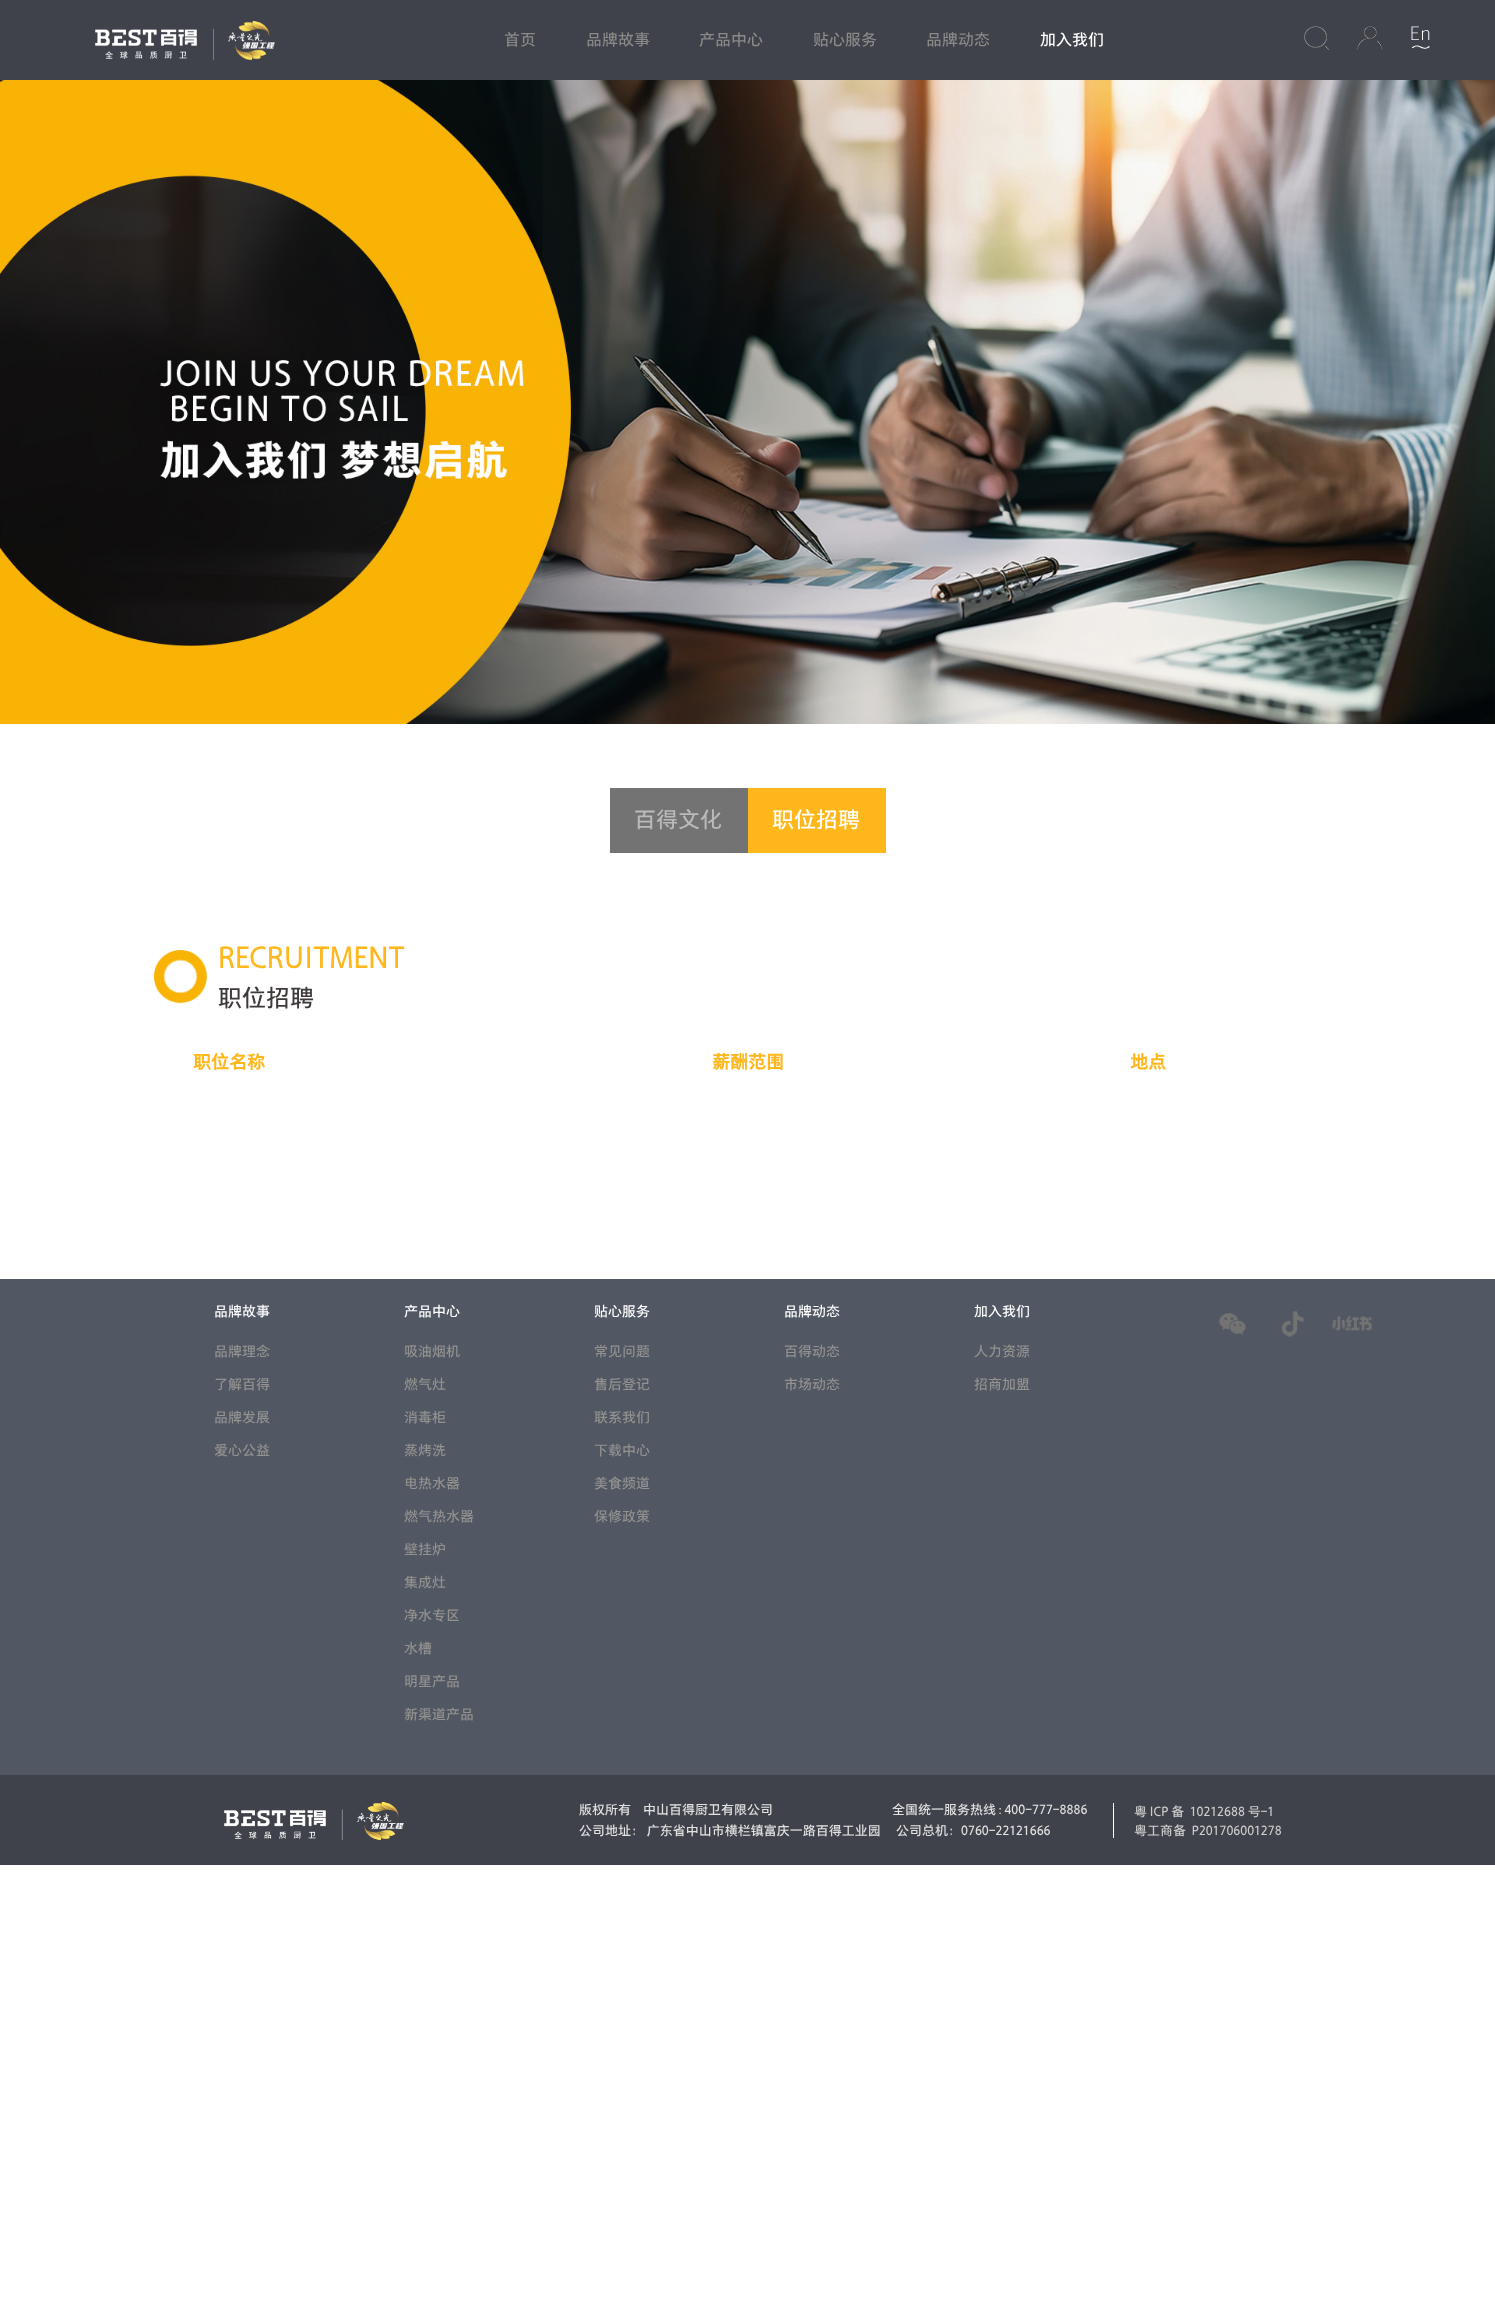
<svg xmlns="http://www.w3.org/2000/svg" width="1495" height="2319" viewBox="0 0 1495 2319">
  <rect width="100%" height="100%" fill="rgb(255,255,255)"/>
  <rect x="0" y="0" width="1495" height="80" fill="rgb(63,66,74)"/>
  <image x="95" y="20" width="180" height="41" href="pic1.png"/>
  <g font-family="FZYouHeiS" font-size="16" font-weight="500" fill="rgb(137,137,136)">
    <text x="504" y="45">首页</text>
    <text x="586" y="45">品牌故事</text>
    <text x="699" y="45">产品中心</text>
    <text x="813" y="45">贴心服务</text>
    <text x="926" y="45">品牌动态</text>
  </g>
  <text x="1040" y="45" font-family="FZYouHeiS" font-size="16" font-weight="500" fill="rgb(255,255,255)">加入我们</text>
  <image x="1304" y="26" width="25" height="24" href="pic2.png"/>
  <image x="1357" y="26" width="25" height="24" href="pic3.png"/>
  <image x="1411" y="26" width="19" height="23" href="pic4.png"/>
  <image x="0" y="80" width="1495" height="644" href="pic5.png"/>
  <rect x="610" y="788" width="138" height="65" fill="rgb(115,115,115)"/>
  <text x="634" y="827" font-family="FZYouHeiS" font-size="22" font-weight="500" fill="rgb(186,186,186)">百得文化</text>
  <rect x="748" y="788" width="138" height="65" fill="rgb(255,183,27)"/>
  <text x="772" y="827" font-family="FZYouHeiS" font-size="22" font-weight="500" fill="rgb(255,255,255)">职位招聘</text>
  <image x="154" y="950" width="54" height="54" href="pic6.png"/>
  <text x="218" y="968" font-family="FZYouHeiS" font-size="30" font-weight="500" fill="rgb(255,183,27)">RECRUITMENT</text>
  <text x="218" y="1006" font-family="FZYouHeiS" font-size="24" font-weight="500" fill="rgb(62,58,57)">职位招聘</text>
  <g font-family="FZYouHeiS" font-size="18" font-weight="bold" fill="rgb(255,183,27)">
    <text x="193" y="1068">职位名称</text>
    <text x="712" y="1068">薪酬范围</text>
    <text x="1130" y="1068">地点</text>
  </g>
  <rect x="0" y="1279" width="1495" height="496" fill="rgb(81,88,99)"/>
  <text x="214" y="1316" font-family="FZYouHeiS" font-size="14" font-weight="500" fill="rgb(255,255,255)">品牌故事</text>
  <g font-family="FZYouHeiS" font-size="14" font-weight="500" fill="rgb(147,146,144)">
    <text x="214" y="1356">品牌理念</text>
    <text x="214" y="1389">了解百得</text>
    <text x="214" y="1422">品牌发展</text>
    <text x="214" y="1455">爱心公益</text>
  </g>
  <text x="404" y="1316" font-family="FZYouHeiS" font-size="14" font-weight="500" fill="rgb(255,255,255)">产品中心</text>
  <g font-family="FZYouHeiS" font-size="14" font-weight="500" fill="rgb(147,146,144)">
    <text x="404" y="1356">吸油烟机</text>
    <text x="404" y="1389">燃气灶</text>
    <text x="404" y="1422">消毒柜</text>
    <text x="404" y="1455">蒸烤洗</text>
    <text x="404" y="1488">电热水器</text>
    <text x="404" y="1521">燃气热水器</text>
    <text x="404" y="1554">壁挂炉</text>
    <text x="404" y="1587">集成灶</text>
    <text x="404" y="1620">净水专区</text>
    <text x="404" y="1653">水槽</text>
    <text x="404" y="1686">明星产品</text>
    <text x="404" y="1719">新渠道产品</text>
  </g>
  <text x="594" y="1316" font-family="FZYouHeiS" font-size="14" font-weight="500" fill="rgb(255,255,255)">贴心服务</text>
  <g font-family="FZYouHeiS" font-size="14" font-weight="500" fill="rgb(147,146,144)">
    <text x="594" y="1356">常见问题</text>
    <text x="594" y="1389">售后登记</text>
    <text x="594" y="1422">联系我们</text>
    <text x="594" y="1455">下载中心</text>
    <text x="594" y="1488">美食频道</text>
    <text x="594" y="1521">保修政策</text>
  </g>
  <text x="784" y="1316" font-family="FZYouHeiS" font-size="14" font-weight="500" fill="rgb(255,255,255)">品牌动态</text>
  <g font-family="FZYouHeiS" font-size="14" font-weight="500" fill="rgb(147,146,144)">
    <text x="784" y="1356">百得动态</text>
    <text x="784" y="1389">市场动态</text>
  </g>
  <text x="974" y="1316" font-family="FZYouHeiS" font-size="14" font-weight="500" fill="rgb(255,255,255)">加入我们</text>
  <g font-family="FZYouHeiS" font-size="14" font-weight="500" fill="rgb(147,146,144)">
    <text x="974" y="1356">人力资源</text>
    <text x="974" y="1389">招商加盟</text>
  </g>
  <image x="1219" y="1313" width="27" height="22" href="pic7.png"/>
  <image x="1281" y="1311" width="23" height="26" href="pic8.png"/>
  <image x="1332" y="1316" width="40" height="15" href="pic9.png"/>
  <rect x="0" y="1775" width="1495" height="90" fill="rgb(63,66,74)"/>
  <image x="224" y="1801" width="180" height="40" href="pic10.png"/>
  <g font-family="FZYouHeiS" font-size="13" font-weight="500" fill="rgb(226,226,226)">
    <text x="579" y="1814">版权所有</text>
    <text x="643" y="1814">中山百得厨卫有限公司</text>
    <text x="892" y="1814">全国统一服务热线 : 400-777-8886</text>
    <text x="579" y="1835">公司地址： 广东省中山市横栏镇富庆一路百得工业园</text>
    <text x="896" y="1835">公司总机：0760-22121666</text>
  </g>
  <rect x="1113" y="1803" width="1" height="35" fill="rgb(255,255,255)"/>
  <g font-family="FZYouHeiS" font-size="13" font-weight="500" fill="rgb(205,205,205)">
    <text xml:space="preserve"><tspan x="1134" y="1816">粤 ICP 备  10212688 号-1</tspan><tspan x="1134" y="1835">粤工商备  P201706001278</tspan></text>
  </g>
</svg>
